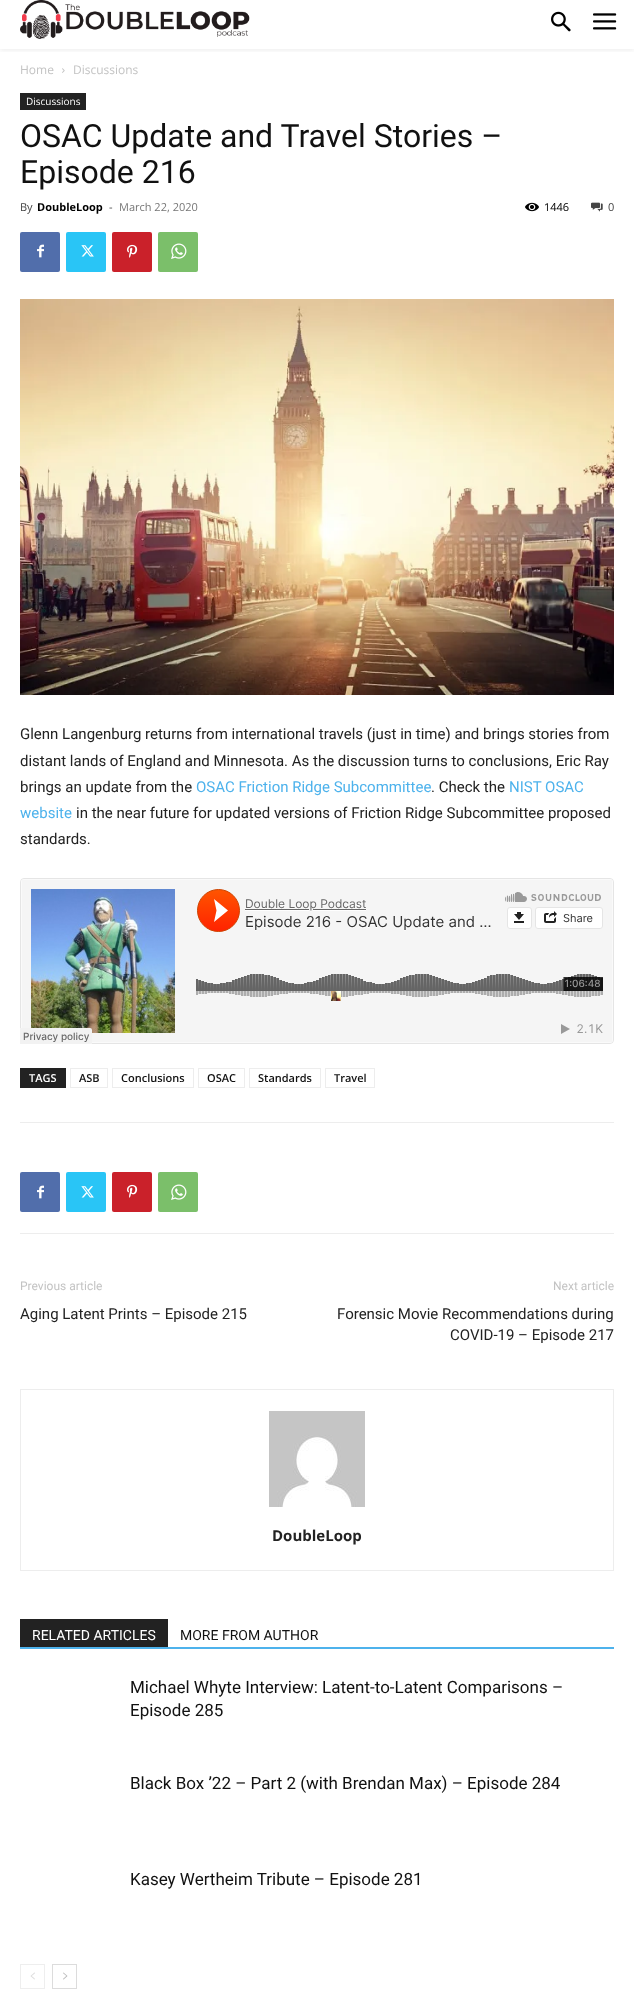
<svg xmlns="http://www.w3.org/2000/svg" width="634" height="2015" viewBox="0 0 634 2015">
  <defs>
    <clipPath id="clip1"><rect x="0" y="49" width="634" height="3"/></clipPath>
  </defs>
  <rect width="100%" height="100%" fill="rgb(255,255,255)"/>
  <image x="20" y="0" width="230" height="39" href="pic1.png"/>
  <image x="551" y="11" width="20" height="21" href="pic2.png"/>
  <image x="593" y="13" width="24" height="17" href="pic3.png"/>
  <g clip-path="url(#clip1)">
    <rect x="0" y="2" width="634" height="49" fill="rgba(0,0,0,0.06)" filter="blur(2px)"/>
  </g>
  <text x="20" y="74" font-family="Open Sans" font-size="12" fill="rgb(195,195,195)">Home</text>
  <image x="62" y="68" width="3" height="5" href="pic4.png"/>
  <text x="73" y="74" font-family="Open Sans" font-size="12" fill="rgb(195,195,195)">Discussions</text>
  <rect x="20" y="93" width="66" height="17" fill="rgb(34,34,34)"/>
  <text x="26" y="105" font-family="Open Sans" font-size="10" fill="rgb(255,255,255)">Discussions</text>
  <g font-family="Roboto" font-size="32" fill="rgb(17,17,17)">
    <text>
      <tspan x="20" y="147">OSAC Update and Travel Stories –</tspan>
      <tspan x="20" y="183">Episode 216</tspan>
    </text>
  </g>
  <text x="20" y="211" font-family="Open Sans" font-size="11" fill="rgb(68,68,68)">By</text>
  <text x="37" y="211" font-family="Open Sans" font-size="11" font-weight="bold" fill="rgb(0,0,0)">DoubleLoop</text>
  <text x="109" y="211" font-family="Open Sans" font-size="11" fill="rgb(68,68,68)">-</text>
  <text x="119" y="211" font-family="Open Sans" font-size="11" fill="rgb(118,118,118)">March 22, 2020</text>
  <image x="525" y="202" width="14" height="10" href="pic5.png"/>
  <text x="544" y="211" font-family="Open Sans" font-size="11" fill="rgb(0,0,0)">1446</text>
  <image x="591" y="202" width="12" height="10" href="pic6.png"/>
  <text x="608" y="211" font-family="Open Sans" font-size="11" fill="rgb(68,68,68)">0</text>
  <rect x="20" y="232" width="40" height="40" rx="2" fill="rgb(81,110,171)"/>
  <image x="37" y="244" width="7" height="14" href="pic7.png"/>
  <rect x="66" y="232" width="40" height="40" rx="2" fill="rgb(41,197,246)"/>
  <image x="81" y="245" width="13" height="12" href="pic8.png"/>
  <rect x="112" y="232" width="40" height="40" rx="2" fill="rgb(202,33,42)"/>
  <image x="127" y="244" width="11" height="14" href="pic9.png"/>
  <rect x="158" y="232" width="40" height="40" rx="2" fill="rgb(123,191,106)"/>
  <image x="171" y="243" width="16" height="16" href="pic10.png"/>
  <image x="20" y="299" width="594" height="396" href="pic11.png"/>
  <g font-family="Roboto" font-size="15" fill="rgb(34,34,34)">
    <text>
      <tspan x="20" y="739">Glenn Langenburg returns from international travels (just in time) and brings stories from</tspan>
      <tspan x="20" y="766">distant lands of England and Minnesota. As the discussion turns to conclusions, Eric Ray</tspan>
      <tspan x="20" y="792">brings an update from the</tspan>
    </text>
  </g>
  <text x="196" y="792" font-family="Roboto" font-size="15" fill="rgb(77,178,236)">OSAC Friction Ridge Subcommittee</text>
  <text x="431" y="792" font-family="Roboto" font-size="15" fill="rgb(34,34,34)">. Check the</text>
  <g font-family="Roboto" font-size="15" fill="rgb(77,178,236)">
    <text x="509" y="792">NIST OSAC</text>
    <text x="20" y="818">website</text>
  </g>
  <g font-family="Roboto" font-size="15" fill="rgb(34,34,34)">
    <text x="76" y="818">in the near future for updated versions of Friction Ridge Subcommittee proposed</text>
    <text x="20" y="844">standards.</text>
  </g>
  <image x="20" y="878" width="594" height="166" href="pic12.png"/>
  <rect x="20" y="1068" width="46" height="20" fill="rgb(34,34,34)"/>
  <text x="29" y="1082" font-family="Open Sans" font-size="11" font-weight="600" fill="rgb(255,255,255)">TAGS</text>
  <rect x="70.5" y="1068.5" width="37" height="19" fill="none" stroke="rgb(237,237,237)"/>
  <text x="79" y="1082" font-family="Open Sans" font-size="11" font-weight="600" fill="rgb(17,17,17)">ASB</text>
  <rect x="112.5" y="1068.5" width="81" height="19" fill="none" stroke="rgb(237,237,237)"/>
  <text x="121" y="1082" font-family="Open Sans" font-size="11" font-weight="600" fill="rgb(17,17,17)">Conclusions</text>
  <rect x="198.5" y="1068.5" width="46" height="19" fill="none" stroke="rgb(237,237,237)"/>
  <text x="207" y="1082" font-family="Open Sans" font-size="11" font-weight="600" fill="rgb(17,17,17)">OSAC</text>
  <rect x="249.5" y="1068.5" width="71" height="19" fill="none" stroke="rgb(237,237,237)"/>
  <text x="258" y="1082" font-family="Open Sans" font-size="11" font-weight="600" fill="rgb(17,17,17)">Standards</text>
  <rect x="325.5" y="1068.5" width="49" height="19" fill="none" stroke="rgb(237,237,237)"/>
  <text x="334" y="1082" font-family="Open Sans" font-size="11" font-weight="600" fill="rgb(17,17,17)">Travel</text>
  <rect x="20" y="1122" width="594" height="1" fill="rgb(237,237,237)"/>
  <rect x="20" y="1233" width="594" height="1" fill="rgb(237,237,237)"/>
  <rect x="20" y="1172" width="40" height="40" rx="2" fill="rgb(81,110,171)"/>
  <image x="37" y="1185" width="7" height="14" href="pic7.png"/>
  <rect x="66" y="1172" width="40" height="40" rx="2" fill="rgb(41,197,246)"/>
  <image x="81" y="1186" width="13" height="12" href="pic8.png"/>
  <rect x="112" y="1172" width="40" height="40" rx="2" fill="rgb(202,33,42)"/>
  <image x="127" y="1184" width="11" height="14" href="pic9.png"/>
  <rect x="158" y="1172" width="40" height="40" rx="2" fill="rgb(123,191,106)"/>
  <image x="171" y="1184" width="16" height="16" href="pic10.png"/>
  <text x="20" y="1290" font-family="Roboto" font-size="12" fill="rgb(195,195,195)">Previous article</text>
  <text x="20" y="1319" font-family="Roboto" font-size="15" fill="rgb(34,34,34)">Aging Latent Prints – Episode 215</text>
  <text x="553" y="1290" font-family="Roboto" font-size="12" fill="rgb(195,195,195)">Next article</text>
  <g font-family="Roboto" font-size="15" fill="rgb(34,34,34)">
    <text x="337" y="1319">Forensic Movie Recommendations during</text>
    <text x="450" y="1340">COVID-19 – Episode 217</text>
  </g>
  <rect x="20.5" y="1389.5" width="593" height="181" fill="none" stroke="rgb(237,237,237)"/>
  <image x="269" y="1411" width="96" height="96" href="pic13.png"/>
  <text x="272" y="1541" font-family="Open Sans" font-size="15" font-weight="bold" fill="rgb(34,34,34)">DoubleLoop</text>
  <rect x="20" y="1647" width="594" height="2" fill="rgb(77,178,236)"/>
  <rect x="20" y="1619" width="148" height="28" fill="rgb(34,34,34)"/>
  <text x="32" y="1640" font-family="Roboto" font-size="14" fill="rgb(255,255,255)">RELATED ARTICLES</text>
  <text x="180" y="1640" font-family="Roboto" font-size="14" fill="rgb(17,17,17)">MORE FROM AUTHOR</text>
  <g font-family="Roboto" font-size="17" fill="rgb(17,17,17)">
    <text>
      <tspan x="130" y="1693">Michael Whyte Interview: Latent-to-Latent Comparisons –</tspan>
      <tspan x="130" y="1716">Episode 285</tspan>
    </text>
    <text x="130" y="1789">Black Box ’22 – Part 2 (with Brendan Max) – Episode 284</text>
    <text x="130" y="1885">Kasey Wertheim Tribute – Episode 281</text>
  </g>
  <rect x="20.5" y="1964.5" width="24" height="24" fill="none" stroke="rgb(238,238,238)"/>
  <image x="30" y="1972" width="5" height="8" href="pic14.png"/>
  <rect x="52.5" y="1964.5" width="24" height="24" fill="none" stroke="rgb(220,220,220)"/>
  <image x="63" y="1972" width="5" height="8" href="pic15.png"/>
</svg>
